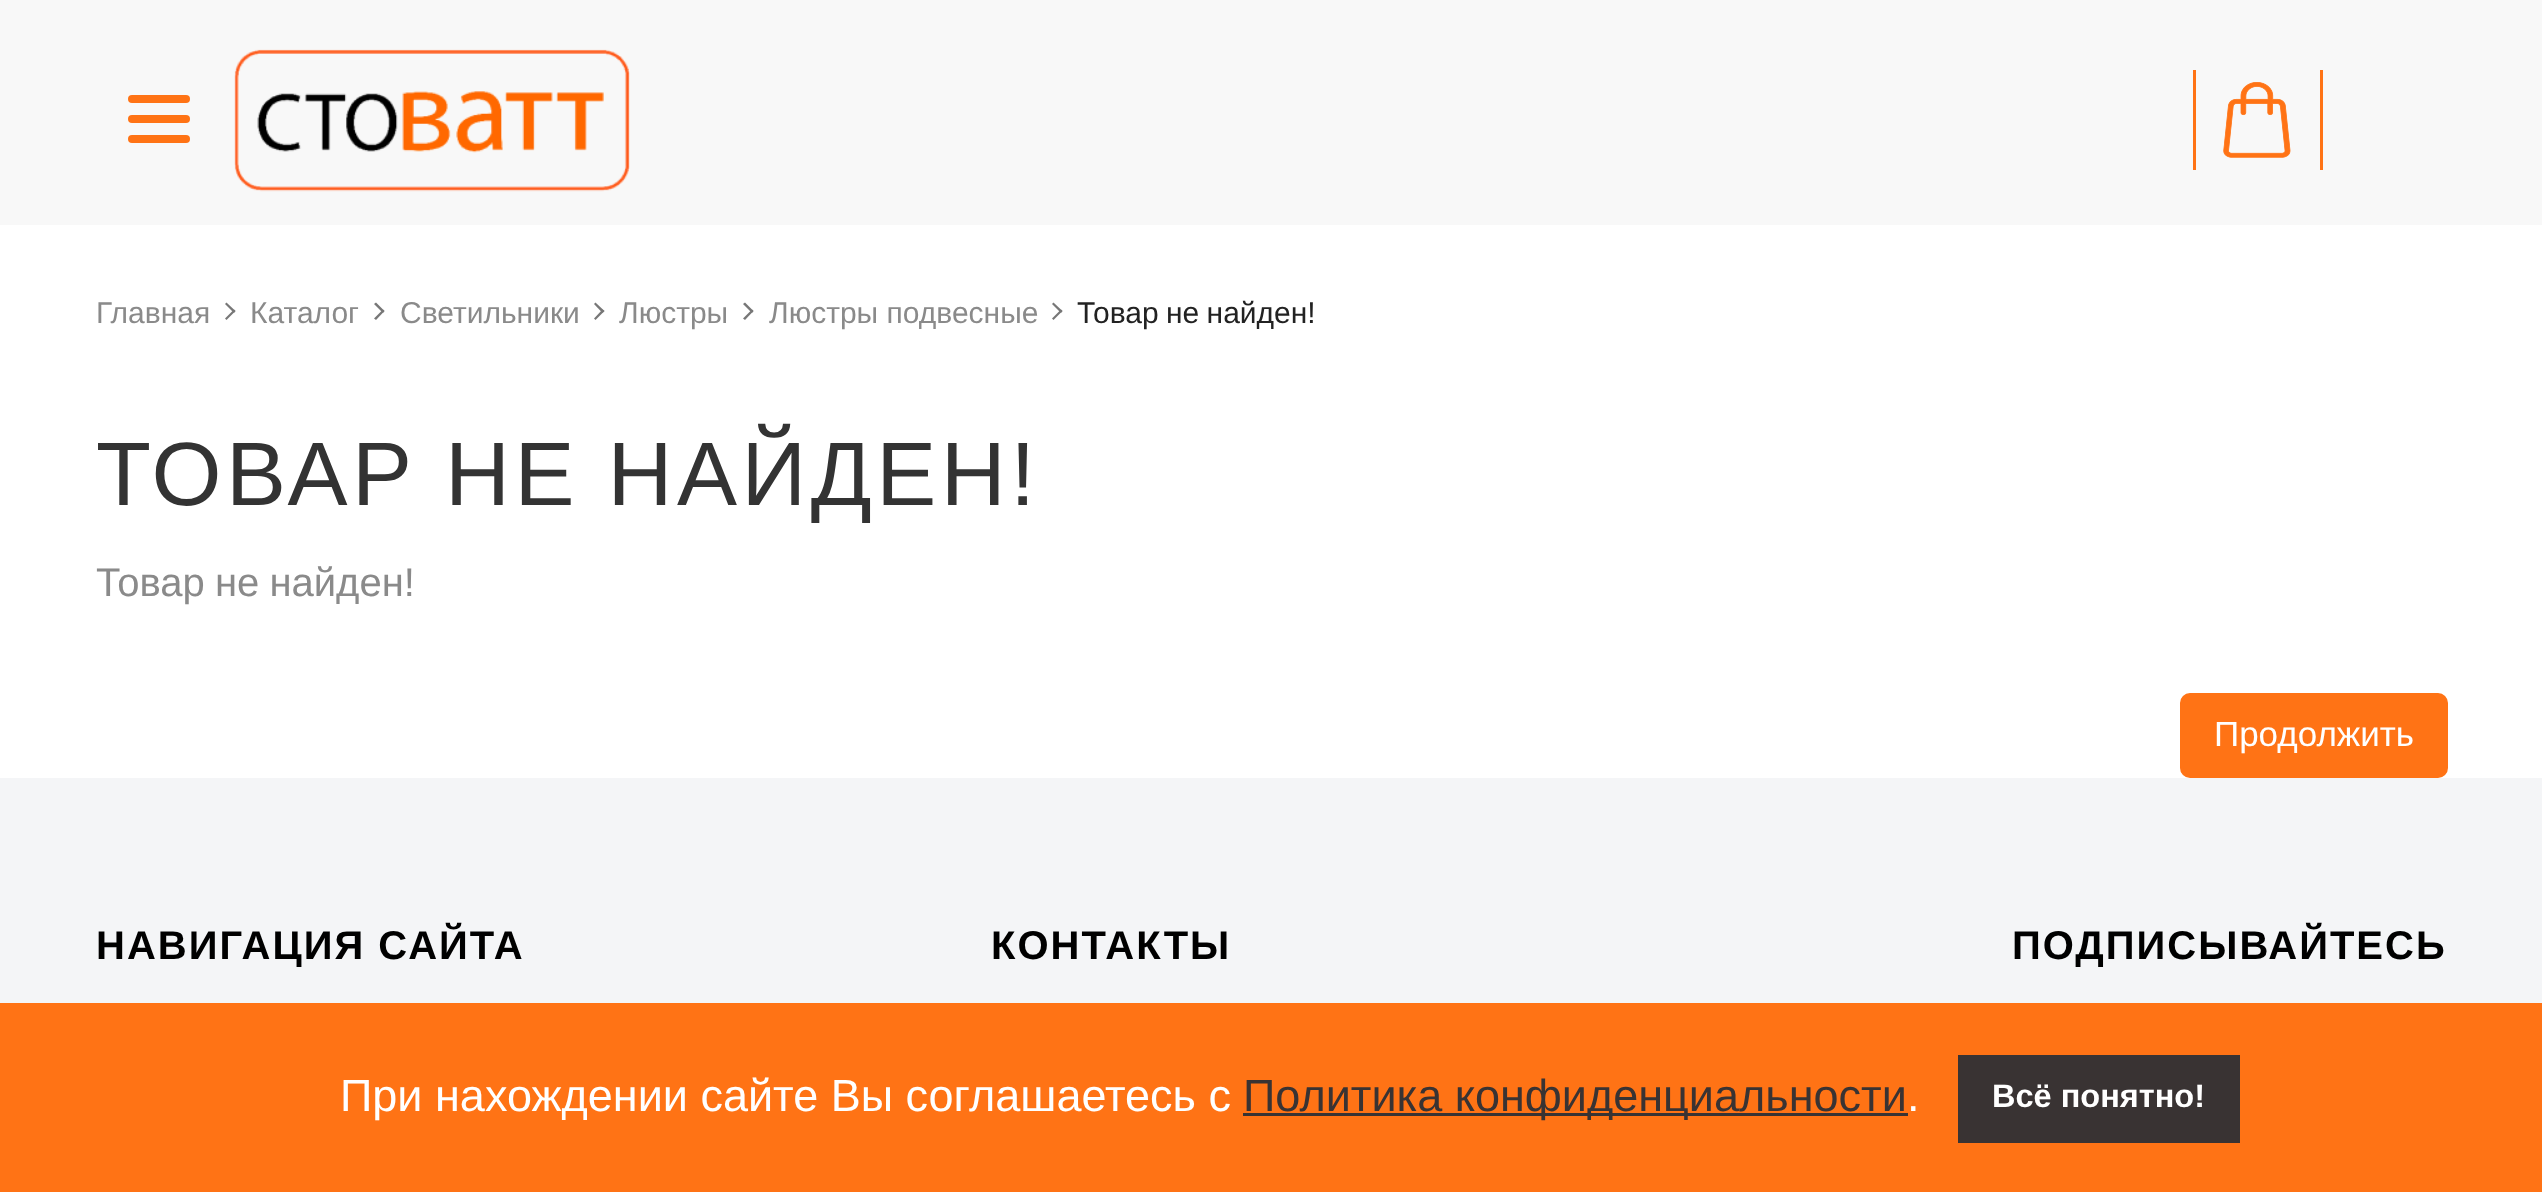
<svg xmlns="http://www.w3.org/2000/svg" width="2542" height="1192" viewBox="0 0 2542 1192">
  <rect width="100%" height="100%" fill="rgb(255,255,255)"/>
  <rect x="0" y="0" width="2542" height="225" fill="rgb(248,248,248)"/>
  <rect x="128" y="95" width="62" height="8" rx="4" fill="rgb(255,115,21)"/>
  <rect x="128" y="115" width="62" height="8" rx="4" fill="rgb(255,115,21)"/>
  <rect x="128" y="135" width="62" height="8" rx="4" fill="rgb(255,115,21)"/>
  <image x="234" y="49" width="396" height="143" href="pic1.png"/>
  <image x="2223" y="82" width="68" height="76" href="pic2.png"/>
  <rect x="2320" y="70" width="3" height="100" fill="rgb(255,115,21)"/>
  <rect x="2193" y="70" width="3" height="100" fill="rgb(255,115,21)"/>
  <text x="96" y="323" font-family="Liberation Sans" font-size="30" fill="rgb(138,138,138)">Главная</text>
  <path d="M225 304L226.5 302.5L235.5 311L234 313Z" fill="rgb(119,119,119)"/>
  <path d="M225 318.5L234 309.5L235.5 311L226.5 320Z" fill="rgb(119,119,119)"/>
  <text x="250" y="323" font-family="Liberation Sans" font-size="30" fill="rgb(138,138,138)">Каталог</text>
  <path d="M374 304L376 302.5L384.5 311L383 313Z" fill="rgb(119,119,119)"/>
  <path d="M374 318.5L383 309.5L384.5 311L376 320Z" fill="rgb(119,119,119)"/>
  <text x="400" y="323" font-family="Liberation Sans" font-size="30" fill="rgb(138,138,138)">Светильники</text>
  <path d="M594 304L595.5 302.5L604.5 311L602.5 313Z" fill="rgb(119,119,119)"/>
  <path d="M594 318.5L602.5 309.5L604.5 311L595.5 320Z" fill="rgb(119,119,119)"/>
  <text x="619" y="323" font-family="Liberation Sans" font-size="30" fill="rgb(138,138,138)">Люстры</text>
  <path d="M743 304L745 302.5L753.5 311L752 313Z" fill="rgb(119,119,119)"/>
  <path d="M743 318.5L752 309.5L753.5 311L745 320Z" fill="rgb(119,119,119)"/>
  <text x="769" y="323" font-family="Liberation Sans" font-size="30" fill="rgb(138,138,138)">Люстры подвесные</text>
  <path d="M1052 304L1053.5 302.5L1062.5 311L1061 313Z" fill="rgb(119,119,119)"/>
  <path d="M1052 318.5L1061 309.5L1062.5 311L1053.5 320Z" fill="rgb(119,119,119)"/>
  <text x="1077" y="323" word-spacing="-1" font-family="Liberation Sans" font-size="30" fill="rgb(34,34,34)">Товар не найден!</text>
  <text x="96" y="505" word-spacing="-1" font-family="Liberation Sans" font-size="90" letter-spacing="4.5" fill="rgb(51,51,51)">ТОВАР НЕ НАЙДЕН!</text>
  <text x="96" y="596" word-spacing="-1" font-family="Liberation Sans" font-size="40" fill="rgb(138,138,138)">Товар не найден!</text>
  <rect x="2181.5" y="694.5" width="265" height="82" rx="8.5" fill="rgb(255,115,21)" stroke="rgb(255,115,21)" stroke-width="3"/>
  <text x="2214" y="746" font-family="Liberation Sans" font-size="35" fill="rgb(255,255,255)">Продолжить</text>
  <rect x="0" y="778" width="2542" height="225" fill="rgb(244,245,247)"/>
  <g font-family="Liberation Sans" font-size="40" font-weight="bold" letter-spacing="2" fill="rgb(0,0,0)">
    <text x="96" y="959">НАВИГАЦИЯ САЙТА</text>
    <text x="991" y="959">КОНТАКТЫ</text>
    <text x="2012" y="959">ПОДПИСЫВАЙТЕСЬ</text>
  </g>
  <rect x="0" y="1003" width="2542" height="189" fill="rgb(255,115,21)"/>
  <text x="340" y="1111" font-family="Liberation Sans" font-size="45" fill="rgb(255,255,255)">При нахождении сайте Вы соглашаетесь с</text>
  <rect x="1243" y="1113" width="665" height="3" fill="rgb(57,51,51)"/>
  <text x="1243" y="1111" font-family="Liberation Sans" font-size="45" fill="rgb(57,51,51)">Политика конфиденциальности</text>
  <text x="1907" y="1111" font-family="Liberation Sans" font-size="45" fill="rgb(255,255,255)">.</text>
  <rect x="1958" y="1055" width="282" height="88" fill="rgb(57,51,51)"/>
  <text x="1992" y="1107" font-family="Liberation Sans" font-size="32.5" font-weight="bold" fill="rgb(255,255,255)">Всё понятно!</text>
</svg>
